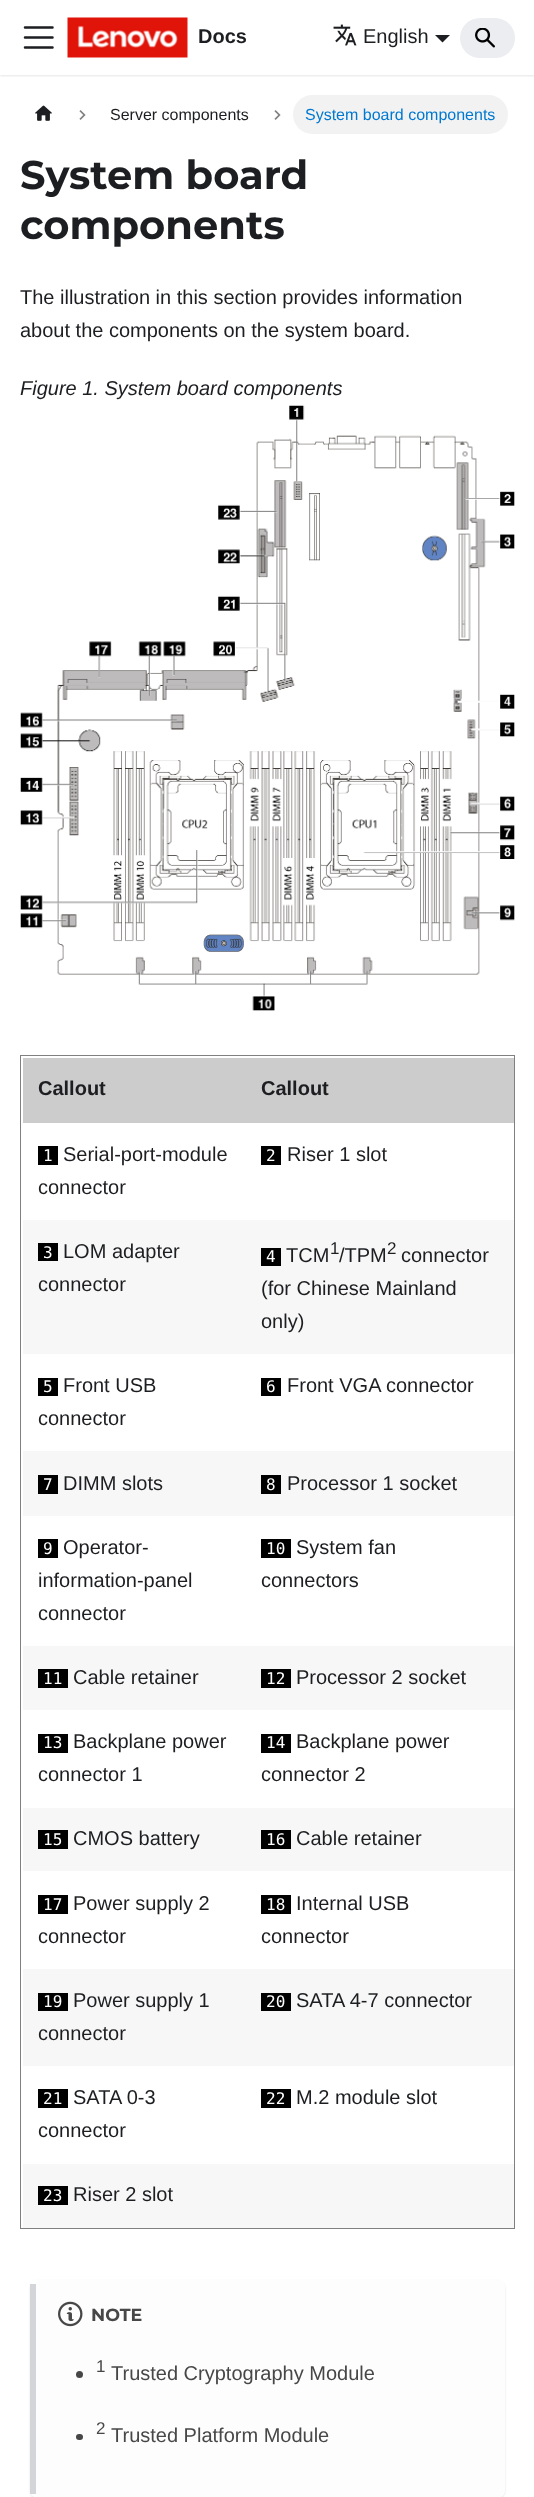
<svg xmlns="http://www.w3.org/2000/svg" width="534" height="2497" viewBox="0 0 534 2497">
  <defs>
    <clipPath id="clip1"><rect x="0" y="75" width="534" height="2"/></clipPath>
    <clipPath id="clip2"><path d="M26 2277H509V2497H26ZM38 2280H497C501.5 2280 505 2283.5 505 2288V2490C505 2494.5 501.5 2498 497 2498H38C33.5 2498 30 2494.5 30 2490V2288C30 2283.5 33.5 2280 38 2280Z" clip-rule="evenodd"/></clipPath>
  </defs>
  <rect width="100%" height="100%" fill="rgb(255,255,255)"/>
  <g clip-path="url(#clip1)">
    <rect x="0" y="1" width="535" height="75" fill="rgba(0,0,0,0.1)" filter="blur(1px)"/>
  </g>
  <path d="M25 27.5H52.5M25 37.5H52.5M25 47.5H52.5" fill="none" stroke="rgb(28,30,33)" stroke-width="2.5" stroke-linecap="round"/>
  <image x="67" y="17" width="121" height="41" href="pic1.png"/>
  <text x="198" y="43" font-family="Liberation Sans" font-size="20" font-weight="bold" fill="rgb(28,30,33)">Docs</text>
  <image x="333" y="24" width="24" height="22" href="pic2.png"/>
  <text x="363" y="43" font-family="Liberation Sans" font-size="20" fill="rgb(28,30,33)">English</text>
  <path d="M435 35H450L442.5 42.5Z" fill="rgb(28,30,33)"/>
  <rect x="460" y="18" width="55" height="40" rx="20" fill="rgb(235,237,240)"/>
  <image x="475" y="28" width="20" height="20" href="pic3.png"/>
  <image x="35" y="105" width="17" height="16" href="pic4.png"/>
  <image x="79" y="110" width="7" height="10" href="pic5.png"/>
  <text x="110" y="120" font-family="Liberation Sans" font-size="16" fill="rgb(28,30,33)">Server components</text>
  <image x="274" y="110" width="7" height="10" href="pic5.png"/>
  <rect x="293" y="95" width="215" height="39" rx="19.5" fill="rgb(242,242,242)"/>
  <text x="305" y="120" font-family="Liberation Sans" font-size="16" fill="rgb(0,120,208)">System board components</text>
  <g font-family="Montserrat" font-size="40" font-weight="bold" fill="rgb(28,30,33)">
    <text>
      <tspan x="20" y="189">System board</tspan>
      <tspan x="20" y="239">components</tspan>
    </text>
  </g>
  <g font-family="Liberation Sans" font-size="20" fill="rgb(28,30,33)">
    <text>
      <tspan x="20" y="304">The illustration in this section provides information</tspan>
      <tspan x="20" y="337">about the components on the system board.</tspan>
    </text>
  </g>
  <text x="20" y="395" font-family="Liberation Sans" font-size="20" font-style="italic" fill="rgb(28,30,33)">Figure 1. System board components</text>
  <image x="20" y="405" width="495" height="606" href="pic6.png"/>
  <rect x="20.5" y="1055.5" width="494" height="1173" fill="none" stroke="rgb(128,128,128)"/>
  <rect x="23" y="1058" width="491" height="65" fill="rgb(204,204,204)"/>
  <g font-family="Liberation Sans" font-size="20" font-weight="bold" fill="rgb(28,30,33)">
    <text x="38" y="1095">Callout</text>
    <text x="261" y="1095">Callout</text>
  </g>
  <rect x="38" y="1146" width="20" height="19" fill="rgb(0,0,0)"/>
  <text x="43" y="1161" font-family="DejaVu Sans Mono" font-size="16" fill="rgb(255,255,255)">1</text>
  <g font-family="Liberation Sans" font-size="20" fill="rgb(28,30,33)">
    <text x="63" y="1161">Serial-port-module</text>
    <text x="38" y="1194">connector</text>
  </g>
  <rect x="261" y="1146" width="20" height="19" fill="rgb(0,0,0)"/>
  <text x="266" y="1161" font-family="DejaVu Sans Mono" font-size="16" fill="rgb(255,255,255)">2</text>
  <text x="287" y="1161" font-family="Liberation Sans" font-size="20" fill="rgb(28,30,33)">Riser 1 slot</text>
  <rect x="23" y="1220" width="491" height="134" fill="rgb(247,247,247)"/>
  <rect x="38" y="1243" width="20" height="18" fill="rgb(0,0,0)"/>
  <text x="43" y="1258" font-family="DejaVu Sans Mono" font-size="16" fill="rgb(255,255,255)">3</text>
  <g font-family="Liberation Sans" font-size="20" fill="rgb(28,30,33)">
    <text x="63" y="1258">LOM adapter</text>
    <text x="38" y="1291">connector</text>
  </g>
  <rect x="261" y="1248" width="20" height="18" fill="rgb(0,0,0)"/>
  <text x="266" y="1262" font-family="DejaVu Sans Mono" font-size="16" fill="rgb(255,255,255)">4</text>
  <text x="286" y="1262" font-family="Liberation Sans" font-size="20" fill="rgb(28,30,33)">TCM</text>
  <text x="330" y="1254" font-family="Liberation Sans" font-size="17" fill="rgb(28,30,33)">1</text>
  <text x="339" y="1262" font-family="Liberation Sans" font-size="20" fill="rgb(28,30,33)">/TPM</text>
  <text x="387" y="1254" font-family="Liberation Sans" font-size="17" fill="rgb(28,30,33)">2</text>
  <g font-family="Liberation Sans" font-size="20" fill="rgb(28,30,33)">
    <text x="401" y="1262">connector</text>
    <text>
      <tspan x="261" y="1295">(for Chinese Mainland</tspan>
      <tspan x="261" y="1328">only)</tspan>
    </text>
  </g>
  <rect x="38" y="1378" width="20" height="18" fill="rgb(0,0,0)"/>
  <text x="43" y="1392" font-family="DejaVu Sans Mono" font-size="16" fill="rgb(255,255,255)">5</text>
  <g font-family="Liberation Sans" font-size="20" fill="rgb(28,30,33)">
    <text x="63" y="1392">Front USB</text>
    <text x="38" y="1425">connector</text>
  </g>
  <rect x="261" y="1378" width="20" height="18" fill="rgb(0,0,0)"/>
  <text x="266" y="1392" font-family="DejaVu Sans Mono" font-size="16" fill="rgb(255,255,255)">6</text>
  <text x="287" y="1392" font-family="Liberation Sans" font-size="20" fill="rgb(28,30,33)">Front VGA connector</text>
  <rect x="23" y="1451" width="491" height="65" fill="rgb(247,247,247)"/>
  <rect x="38" y="1475" width="20" height="19" fill="rgb(0,0,0)"/>
  <text x="43" y="1490" font-family="DejaVu Sans Mono" font-size="16" fill="rgb(255,255,255)">7</text>
  <text x="63" y="1490" font-family="Liberation Sans" font-size="20" fill="rgb(28,30,33)">DIMM slots</text>
  <rect x="261" y="1475" width="20" height="19" fill="rgb(0,0,0)"/>
  <text x="266" y="1490" font-family="DejaVu Sans Mono" font-size="16" fill="rgb(255,255,255)">8</text>
  <text x="287" y="1490" font-family="Liberation Sans" font-size="20" fill="rgb(28,30,33)">Processor 1 socket</text>
  <rect x="38" y="1539" width="20" height="19" fill="rgb(0,0,0)"/>
  <text x="43" y="1554" font-family="DejaVu Sans Mono" font-size="16" fill="rgb(255,255,255)">9</text>
  <g font-family="Liberation Sans" font-size="20" fill="rgb(28,30,33)">
    <text x="63" y="1554">Operator-</text>
    <text>
      <tspan x="38" y="1587">information-panel</tspan>
      <tspan x="38" y="1620">connector</tspan>
    </text>
  </g>
  <rect x="261" y="1539" width="30" height="19" fill="rgb(0,0,0)"/>
  <text x="266" y="1554" font-family="DejaVu Sans Mono" font-size="16" fill="rgb(255,255,255)">10</text>
  <g font-family="Liberation Sans" font-size="20" fill="rgb(28,30,33)">
    <text x="296" y="1554">System fan</text>
    <text x="261" y="1587">connectors</text>
  </g>
  <rect x="23" y="1646" width="491" height="64" fill="rgb(247,247,247)"/>
  <rect x="38" y="1669" width="30" height="19" fill="rgb(0,0,0)"/>
  <text x="43" y="1684" font-family="DejaVu Sans Mono" font-size="16" fill="rgb(255,255,255)">11</text>
  <text x="73" y="1684" font-family="Liberation Sans" font-size="20" fill="rgb(28,30,33)">Cable retainer</text>
  <rect x="261" y="1669" width="30" height="19" fill="rgb(0,0,0)"/>
  <text x="266" y="1684" font-family="DejaVu Sans Mono" font-size="16" fill="rgb(255,255,255)">12</text>
  <text x="296" y="1684" font-family="Liberation Sans" font-size="20" fill="rgb(28,30,33)">Processor 2 socket</text>
  <rect x="38" y="1734" width="30" height="19" fill="rgb(0,0,0)"/>
  <text x="43" y="1748" font-family="DejaVu Sans Mono" font-size="16" fill="rgb(255,255,255)">13</text>
  <g font-family="Liberation Sans" font-size="20" fill="rgb(28,30,33)">
    <text x="73" y="1748">Backplane power</text>
    <text x="38" y="1781">connector 1</text>
  </g>
  <rect x="261" y="1734" width="30" height="19" fill="rgb(0,0,0)"/>
  <text x="266" y="1748" font-family="DejaVu Sans Mono" font-size="16" fill="rgb(255,255,255)">14</text>
  <g font-family="Liberation Sans" font-size="20" fill="rgb(28,30,33)">
    <text x="296" y="1748">Backplane power</text>
    <text x="261" y="1781">connector 2</text>
  </g>
  <rect x="23" y="1808" width="491" height="63" fill="rgb(247,247,247)"/>
  <rect x="38" y="1830" width="30" height="19" fill="rgb(0,0,0)"/>
  <text x="43" y="1845" font-family="DejaVu Sans Mono" font-size="16" fill="rgb(255,255,255)">15</text>
  <text x="73" y="1845" font-family="Liberation Sans" font-size="20" fill="rgb(28,30,33)">CMOS battery</text>
  <rect x="261" y="1830" width="30" height="19" fill="rgb(0,0,0)"/>
  <text x="266" y="1845" font-family="DejaVu Sans Mono" font-size="16" fill="rgb(255,255,255)">16</text>
  <text x="296" y="1845" font-family="Liberation Sans" font-size="20" fill="rgb(28,30,33)">Cable retainer</text>
  <rect x="38" y="1895" width="30" height="19" fill="rgb(0,0,0)"/>
  <text x="43" y="1910" font-family="DejaVu Sans Mono" font-size="16" fill="rgb(255,255,255)">17</text>
  <g font-family="Liberation Sans" font-size="20" fill="rgb(28,30,33)">
    <text x="73" y="1910">Power supply 2</text>
    <text x="38" y="1943">connector</text>
  </g>
  <rect x="261" y="1895" width="30" height="19" fill="rgb(0,0,0)"/>
  <text x="266" y="1910" font-family="DejaVu Sans Mono" font-size="16" fill="rgb(255,255,255)">18</text>
  <g font-family="Liberation Sans" font-size="20" fill="rgb(28,30,33)">
    <text x="296" y="1910">Internal USB</text>
    <text x="261" y="1943">connector</text>
  </g>
  <rect x="23" y="1969" width="491" height="97" fill="rgb(247,247,247)"/>
  <rect x="38" y="1993" width="30" height="18" fill="rgb(0,0,0)"/>
  <text x="43" y="2007" font-family="DejaVu Sans Mono" font-size="16" fill="rgb(255,255,255)">19</text>
  <g font-family="Liberation Sans" font-size="20" fill="rgb(28,30,33)">
    <text x="73" y="2007">Power supply 1</text>
    <text x="38" y="2040">connector</text>
  </g>
  <rect x="261" y="1993" width="30" height="18" fill="rgb(0,0,0)"/>
  <text x="266" y="2007" font-family="DejaVu Sans Mono" font-size="16" fill="rgb(255,255,255)">20</text>
  <text x="296" y="2007" font-family="Liberation Sans" font-size="20" fill="rgb(28,30,33)">SATA 4-7 connector</text>
  <rect x="38" y="2089" width="30" height="19" fill="rgb(0,0,0)"/>
  <text x="43" y="2104" font-family="DejaVu Sans Mono" font-size="16" fill="rgb(255,255,255)">21</text>
  <g font-family="Liberation Sans" font-size="20" fill="rgb(28,30,33)">
    <text x="73" y="2104">SATA 0-3</text>
    <text x="38" y="2137">connector</text>
  </g>
  <rect x="261" y="2089" width="30" height="19" fill="rgb(0,0,0)"/>
  <text x="266" y="2104" font-family="DejaVu Sans Mono" font-size="16" fill="rgb(255,255,255)">22</text>
  <text x="296" y="2104" font-family="Liberation Sans" font-size="20" fill="rgb(28,30,33)">M.2 module slot</text>
  <rect x="23" y="2164" width="491" height="64" fill="rgb(247,247,247)"/>
  <rect x="38" y="2186" width="30" height="19" fill="rgb(0,0,0)"/>
  <text x="43" y="2201" font-family="DejaVu Sans Mono" font-size="16" fill="rgb(255,255,255)">23</text>
  <text x="73" y="2201" font-family="Liberation Sans" font-size="20" fill="rgb(28,30,33)">Riser 2 slot</text>
  <g clip-path="url(#clip2)">
    <rect x="30" y="2281" width="475" height="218" rx="8" fill="rgba(0,0,0,0.1)" filter="blur(1px)"/>
  </g>
  <path d="M38 2280H497C501 2280 505 2284 505 2288V2490C505 2494 501 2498 497 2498H38C37 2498 36 2494 36 2490V2288C36 2284 37 2280 38 2280Z" fill="rgb(253,253,254)"/>
  <rect x="30" y="2284" width="6" height="210" fill="rgb(212,213,216)"/>
  <image x="58" y="2301" width="25" height="26" href="pic7.png"/>
  <text x="91" y="2321" font-family="Montserrat" font-size="17.5" font-weight="bold" fill="rgb(71,71,72)">NOTE</text>
  <circle cx="79.5" cy="2374.5" r="3.5" fill="rgb(71,71,72)"/>
  <text x="96" y="2372" font-family="Liberation Sans" font-size="17" fill="rgb(71,71,72)">1</text>
  <text x="111" y="2380" font-family="Liberation Sans" font-size="20" fill="rgb(71,71,72)">Trusted Cryptography Module</text>
  <rect x="76" y="2434" width="7" height="6" rx="3" fill="rgb(71,71,72)"/>
  <text x="96" y="2434" font-family="Liberation Sans" font-size="17" fill="rgb(71,71,72)">2</text>
  <text x="111" y="2442" font-family="Liberation Sans" font-size="20" fill="rgb(71,71,72)">Trusted Platform Module</text>
</svg>
